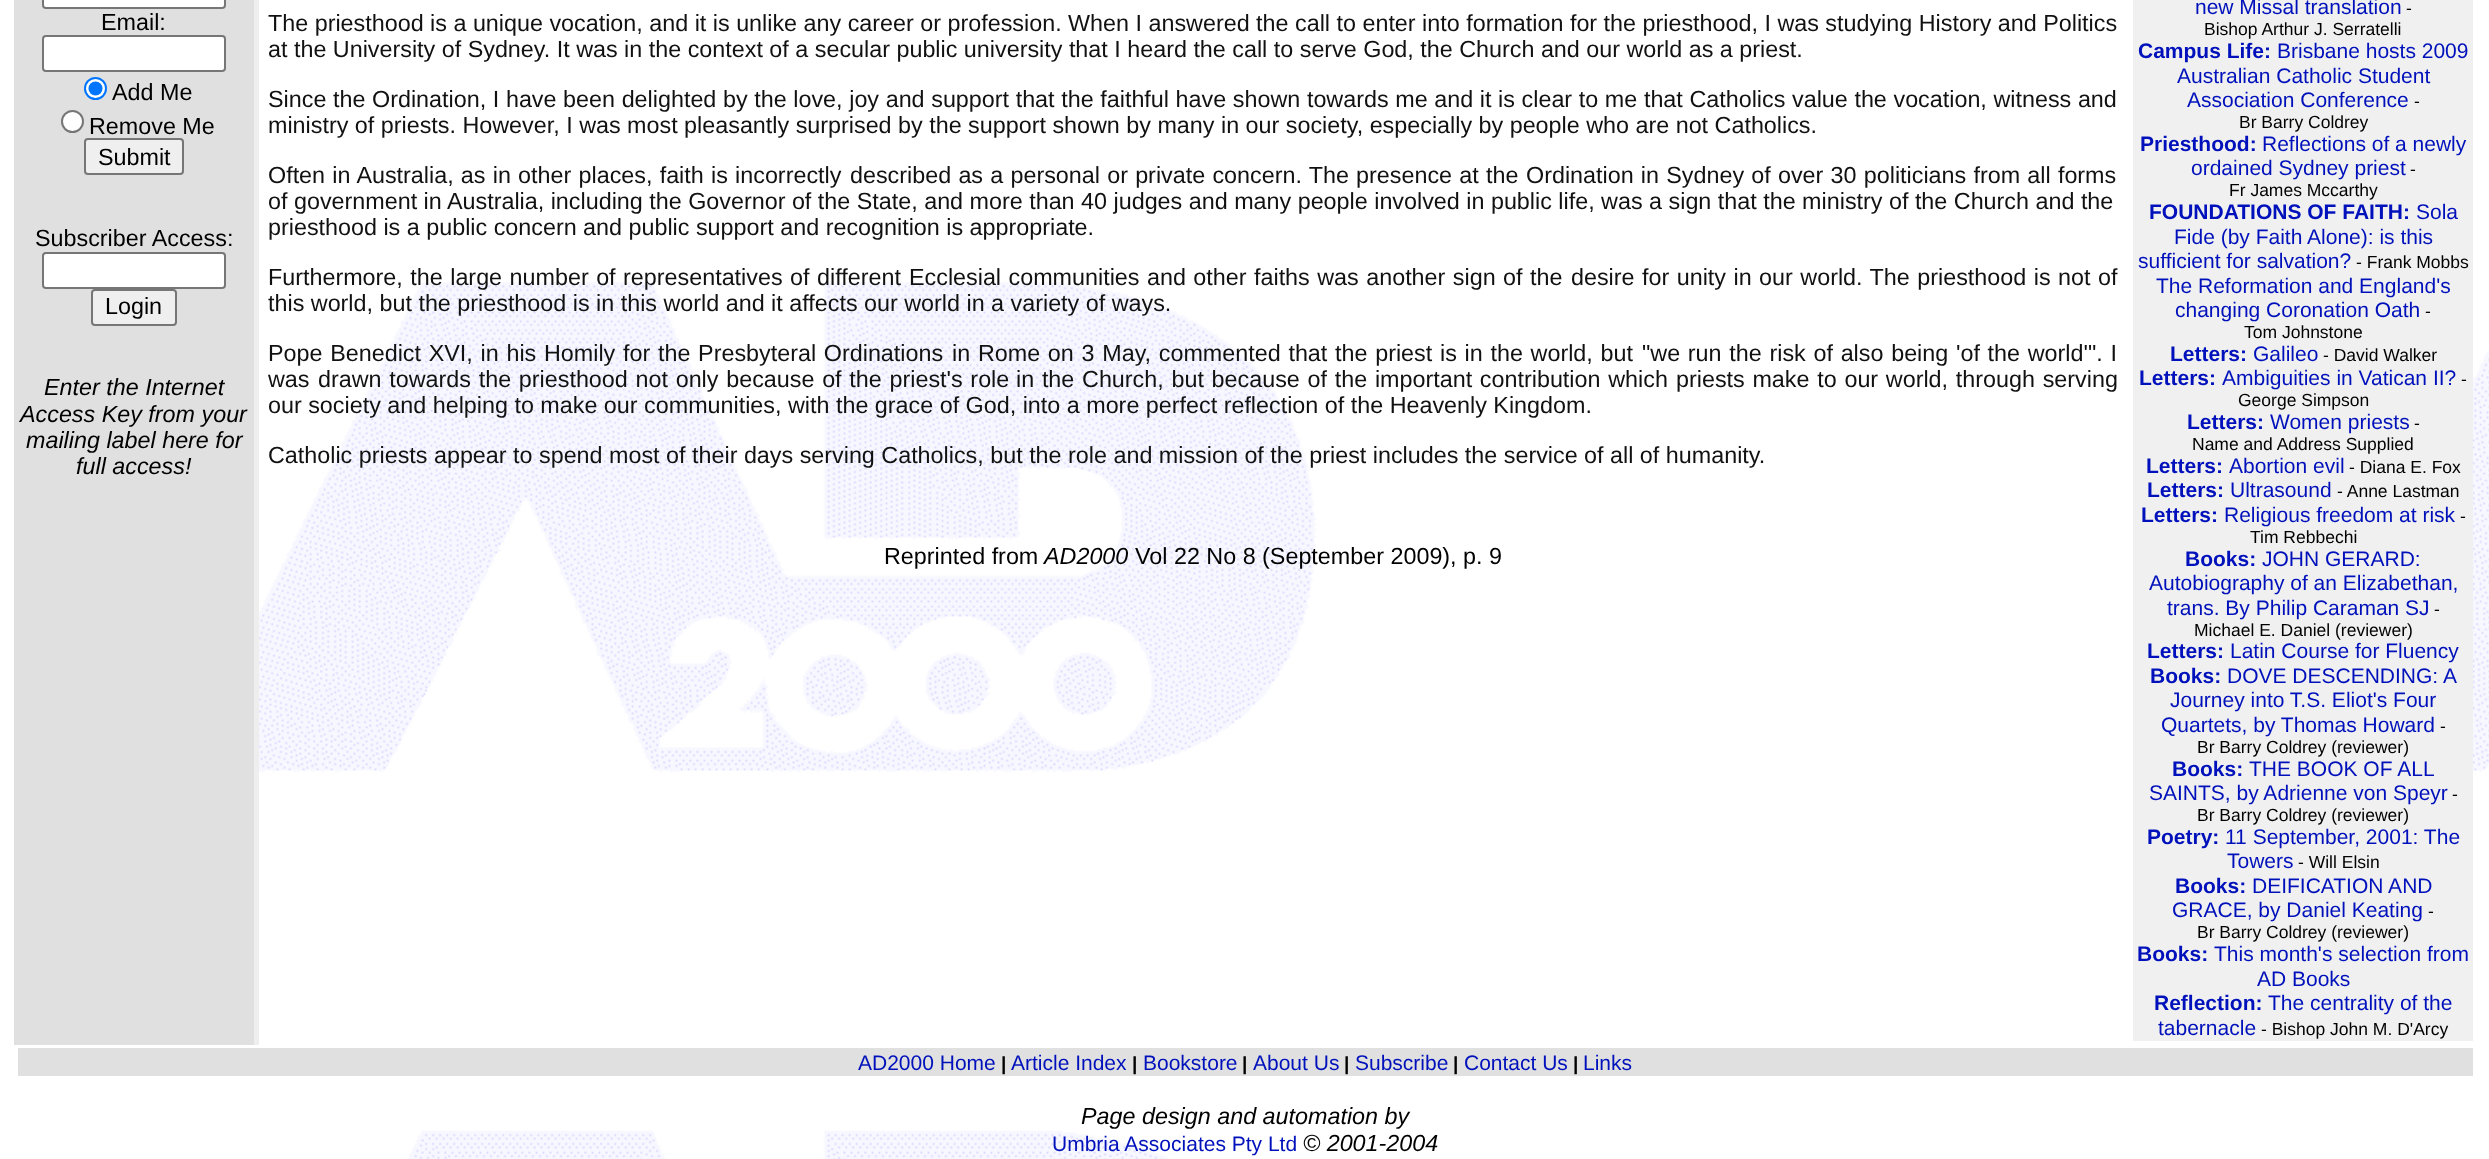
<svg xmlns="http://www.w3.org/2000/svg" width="2489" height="1159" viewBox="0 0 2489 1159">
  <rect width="100%" height="100%" fill="rgb(255,255,255)"/>
  <image x="184" y="282" width="2305" height="877" href="pic1.png"/>
  <rect x="14" y="0" width="240" height="1045" fill="rgb(224,224,224)"/>
  <rect x="43" y="-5" width="182" height="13" rx="3" fill="rgb(255,255,255)" stroke="rgb(118,118,118)" stroke-width="2"/>
  <text x="101" y="30" font-family="Liberation Sans" font-size="23.33" fill="rgb(0,0,0)">Email:</text>
  <rect x="43" y="36" width="182" height="35" rx="3" fill="rgb(255,255,255)" stroke="rgb(118,118,118)" stroke-width="2"/>
  <circle cx="95.5" cy="88.5" r="10.5" fill="rgb(255,255,255)" stroke="rgb(0,117,255)" stroke-width="2"/>
  <circle cx="95.5" cy="88.5" r="7" fill="rgb(0,117,255)"/>
  <text x="112" y="100" font-family="Liberation Sans" font-size="23.33" fill="rgb(0,0,0)">Add Me</text>
  <circle cx="72.5" cy="121.5" r="10.5" fill="rgb(255,255,255)" stroke="rgb(118,118,118)" stroke-width="2"/>
  <text x="89" y="134" font-family="Liberation Sans" font-size="23.33" fill="rgb(0,0,0)">Remove Me</text>
  <rect x="85" y="139" width="98" height="35" rx="3" fill="rgb(239,239,239)" stroke="rgb(118,118,118)" stroke-width="2"/>
  <g font-family="Liberation Sans" font-size="23.33" fill="rgb(0,0,0)">
    <text x="98" y="165">Submit</text>
    <text x="35" y="246">Subscriber Access:</text>
  </g>
  <rect x="43" y="253" width="182" height="35" rx="3" fill="rgb(255,255,255)" stroke="rgb(118,118,118)" stroke-width="2"/>
  <rect x="92" y="290" width="84" height="35" rx="3" fill="rgb(239,239,239)" stroke="rgb(118,118,118)" stroke-width="2"/>
  <text x="105" y="314" font-family="Liberation Sans" font-size="23.33" fill="rgb(0,0,0)">Login</text>
  <g font-family="Liberation Sans" font-size="23.33" font-style="italic" fill="rgb(0,0,0)">
    <text x="44" y="395">Enter the Internet</text>
    <text x="20" y="422">Access Key from your</text>
    <text x="26" y="448">mailing label here for</text>
    <text x="76" y="474">full access!</text>
  </g>
  <rect x="254" y="0" width="5" height="1045" fill="rgb(238,238,238)"/>
  <g font-family="Liberation Sans" font-size="23.33" fill="rgb(17,17,17)">
    <text>
      <tspan x="268" y="31">The priesthood is a unique vocation, and it is unlike any career or profession. When I answered the call to enter into formation for the priesthood, I was studying History and Politics</tspan>
      <tspan x="268" y="57">at the University of Sydney. It was in the context of a secular public university that I heard the call to serve God, the Church and our world as a priest.</tspan>
    </text>
  </g>
  <rect x="2133" y="0" width="340" height="1041" fill="rgb(240,240,240)"/>
  <text x="2195" y="14" font-family="Liberation Sans" font-size="21" fill="rgb(0,17,187)">new Missal translation</text>
  <g font-family="Liberation Sans" font-size="17.5" fill="rgb(0,0,0)">
    <text x="2406" y="14">-</text>
    <text x="2204" y="35">Bishop Arthur J. Serratelli</text>
  </g>
  <text x="2138" y="58" font-family="Liberation Sans" font-size="21" font-weight="bold" fill="rgb(0,17,187)">Campus Life:</text>
  <g font-family="Liberation Sans" font-size="21" fill="rgb(0,17,187)">
    <text x="2277" y="58">Brisbane hosts 2009</text>
    <text x="2177" y="83">Australian Catholic Student</text>
    <text x="2187" y="107">Association Conference</text>
  </g>
  <g font-family="Liberation Sans" font-size="17.5" fill="rgb(0,0,0)">
    <text x="2414" y="107">-</text>
    <text x="2239" y="128">Br Barry Coldrey</text>
  </g>
  <text x="2140" y="151" font-family="Liberation Sans" font-size="21" font-weight="bold" fill="rgb(0,17,187)">Priesthood:</text>
  <g font-family="Liberation Sans" font-size="21" fill="rgb(0,17,187)">
    <text x="2262" y="151">Reflections of a newly</text>
    <text x="2191" y="175">ordained Sydney priest</text>
  </g>
  <g font-family="Liberation Sans" font-size="17.5" fill="rgb(0,0,0)">
    <text x="2410" y="175">-</text>
    <text x="2229" y="196">Fr James Mccarthy</text>
  </g>
  <text x="2149" y="219" font-family="Liberation Sans" font-size="21" font-weight="bold" fill="rgb(0,17,187)">FOUNDATIONS OF FAITH:</text>
  <g font-family="Liberation Sans" font-size="21" fill="rgb(0,17,187)">
    <text x="2416" y="219">Sola</text>
    <text x="2174" y="244">Fide (by Faith Alone): is this</text>
    <text x="2138" y="268">sufficient for salvation?</text>
  </g>
  <text x="2356" y="268" font-family="Liberation Sans" font-size="17.5" fill="rgb(0,0,0)">- Frank Mobbs</text>
  <g font-family="Liberation Sans" font-size="21" fill="rgb(0,17,187)">
    <text x="2156" y="293">The Reformation and England's</text>
    <text x="2175" y="317">changing Coronation Oath</text>
  </g>
  <g font-family="Liberation Sans" font-size="17.5" fill="rgb(0,0,0)">
    <text x="2425" y="317">-</text>
    <text x="2244" y="338">Tom Johnstone</text>
  </g>
  <text x="2170" y="361" font-family="Liberation Sans" font-size="21" font-weight="bold" fill="rgb(0,17,187)">Letters:</text>
  <text x="2253" y="361" font-family="Liberation Sans" font-size="21" fill="rgb(0,17,187)">Galileo</text>
  <text x="2323" y="361" font-family="Liberation Sans" font-size="17.5" fill="rgb(0,0,0)">- David Walker</text>
  <text x="2139" y="385" font-family="Liberation Sans" font-size="21" font-weight="bold" fill="rgb(0,17,187)">Letters:</text>
  <text x="2222" y="385" font-family="Liberation Sans" font-size="21" fill="rgb(0,17,187)">Ambiguities in Vatican II?</text>
  <g font-family="Liberation Sans" font-size="17.5" fill="rgb(0,0,0)">
    <text x="2461" y="385">-</text>
    <text x="2238" y="406">George Simpson</text>
  </g>
  <text x="2187" y="429" font-family="Liberation Sans" font-size="21" font-weight="bold" fill="rgb(0,17,187)">Letters:</text>
  <text x="2270" y="429" font-family="Liberation Sans" font-size="21" fill="rgb(0,17,187)">Women priests</text>
  <g font-family="Liberation Sans" font-size="17.5" fill="rgb(0,0,0)">
    <text x="2414" y="429">-</text>
    <text x="2192" y="450">Name and Address Supplied</text>
  </g>
  <text x="2146" y="473" font-family="Liberation Sans" font-size="21" font-weight="bold" fill="rgb(0,17,187)">Letters:</text>
  <text x="2229" y="473" font-family="Liberation Sans" font-size="21" fill="rgb(0,17,187)">Abortion evil</text>
  <text x="2349" y="473" font-family="Liberation Sans" font-size="17.5" fill="rgb(0,0,0)">- Diana E. Fox</text>
  <text x="2147" y="497" font-family="Liberation Sans" font-size="21" font-weight="bold" fill="rgb(0,17,187)">Letters:</text>
  <text x="2230" y="497" font-family="Liberation Sans" font-size="21" fill="rgb(0,17,187)">Ultrasound</text>
  <text x="2337" y="497" font-family="Liberation Sans" font-size="17.5" fill="rgb(0,0,0)">- Anne Lastman</text>
  <text x="2141" y="522" font-family="Liberation Sans" font-size="21" font-weight="bold" fill="rgb(0,17,187)">Letters:</text>
  <text x="2224" y="522" font-family="Liberation Sans" font-size="21" fill="rgb(0,17,187)">Religious freedom at risk</text>
  <g font-family="Liberation Sans" font-size="17.5" fill="rgb(0,0,0)">
    <text x="2460" y="522">-</text>
    <text x="2250" y="543">Tim Rebbechi</text>
  </g>
  <text x="2185" y="566" font-family="Liberation Sans" font-size="21" font-weight="bold" fill="rgb(0,17,187)">Books:</text>
  <g font-family="Liberation Sans" font-size="21" fill="rgb(0,17,187)">
    <text x="2262" y="566">JOHN GERARD:</text>
    <text x="2149" y="590">Autobiography of an Elizabethan,</text>
    <text x="2167" y="615">trans. By Philip Caraman SJ</text>
  </g>
  <g font-family="Liberation Sans" font-size="17.5" fill="rgb(0,0,0)">
    <text x="2434" y="615">-</text>
    <text x="2194" y="636">Michael E. Daniel (reviewer)</text>
  </g>
  <text x="2147" y="658" font-family="Liberation Sans" font-size="21" font-weight="bold" fill="rgb(0,17,187)">Letters:</text>
  <text x="2230" y="658" font-family="Liberation Sans" font-size="21" fill="rgb(0,17,187)">Latin Course for Fluency</text>
  <text x="2150" y="683" font-family="Liberation Sans" font-size="21" font-weight="bold" fill="rgb(0,17,187)">Books:</text>
  <g font-family="Liberation Sans" font-size="21" fill="rgb(0,17,187)">
    <text x="2227" y="683">DOVE DESCENDING: A</text>
    <text x="2170" y="707">Journey into T.S. Eliot's Four</text>
    <text x="2161" y="732">Quartets, by Thomas Howard</text>
  </g>
  <g font-family="Liberation Sans" font-size="17.5" fill="rgb(0,0,0)">
    <text x="2440" y="732">-</text>
    <text x="2197" y="753">Br Barry Coldrey (reviewer)</text>
  </g>
  <text x="2172" y="776" font-family="Liberation Sans" font-size="21" font-weight="bold" fill="rgb(0,17,187)">Books:</text>
  <g font-family="Liberation Sans" font-size="21" fill="rgb(0,17,187)">
    <text x="2249" y="776">THE BOOK OF ALL</text>
    <text x="2149" y="800">SAINTS, by Adrienne von Speyr</text>
  </g>
  <g font-family="Liberation Sans" font-size="17.5" fill="rgb(0,0,0)">
    <text x="2452" y="800">-</text>
    <text x="2197" y="821">Br Barry Coldrey (reviewer)</text>
  </g>
  <text x="2147" y="844" font-family="Liberation Sans" font-size="21" font-weight="bold" fill="rgb(0,17,187)">Poetry:</text>
  <g font-family="Liberation Sans" font-size="21" fill="rgb(0,17,187)">
    <text x="2225" y="844">11 September, 2001: The</text>
    <text x="2227" y="868">Towers</text>
  </g>
  <text x="2298" y="868" font-family="Liberation Sans" font-size="17.5" fill="rgb(0,0,0)">- Will Elsin</text>
  <text x="2175" y="893" font-family="Liberation Sans" font-size="21" font-weight="bold" fill="rgb(0,17,187)">Books:</text>
  <g font-family="Liberation Sans" font-size="21" fill="rgb(0,17,187)">
    <text x="2252" y="893">DEIFICATION AND</text>
    <text x="2172" y="917">GRACE, by Daniel Keating</text>
  </g>
  <g font-family="Liberation Sans" font-size="17.5" fill="rgb(0,0,0)">
    <text x="2428" y="917">-</text>
    <text x="2197" y="938">Br Barry Coldrey (reviewer)</text>
  </g>
  <text x="2137" y="961" font-family="Liberation Sans" font-size="21" font-weight="bold" fill="rgb(0,17,187)">Books:</text>
  <g font-family="Liberation Sans" font-size="21" fill="rgb(0,17,187)">
    <text x="2214" y="961">This month's selection from</text>
    <text x="2257" y="986">AD Books</text>
  </g>
  <text x="2154" y="1010" font-family="Liberation Sans" font-size="21" font-weight="bold" fill="rgb(0,17,187)">Reflection:</text>
  <g font-family="Liberation Sans" font-size="21" fill="rgb(0,17,187)">
    <text x="2268" y="1010">The centrality of the</text>
    <text x="2158" y="1035">tabernacle</text>
  </g>
  <text x="2261" y="1035" font-family="Liberation Sans" font-size="17.5" fill="rgb(0,0,0)">- Bishop John M. D'Arcy</text>
  <g font-family="Liberation Sans" font-size="23.33" fill="rgb(17,17,17)">
    <text>
      <tspan x="268" y="107" word-spacing="0.15">Since the Ordination, I have been delighted by the love, joy and support that the faithful have shown towards me and it is clear to me that Catholics value the vocation, witness and</tspan>
      <tspan x="268" y="133">ministry of priests. However, I was most pleasantly surprised by the support shown by many in our society, especially by people who are not Catholics.</tspan>
    </text>
    <text x="268" y="183" word-spacing="0.75">Often in Australia, as in other places, faith is incorrectly</text>
    <text x="850" y="183" word-spacing="0.75">described as a personal or private concern. The presence at the</text>
    <text x="1526" y="183" word-spacing="0.75">Ordination in Sydney of over 30 politicians from all forms</text>
    <text>
      <tspan x="268" y="209">of government in Australia, including the Governor of the State, and more than 40 judges and many people involved in public life, was a sign that the ministry of the Church and the</tspan>
      <tspan x="268" y="235">priesthood is a public concern and public support and recognition is appropriate.</tspan>
    </text>
    <text x="268" y="285" word-spacing="1">Furthermore, the large number of representatives of different</text>
    <text x="909" y="285" word-spacing="1">Ecclesial communities and other faiths was another sign of the</text>
    <text x="1571" y="285" word-spacing="1">desire for unity in our world. The priesthood is not of</text>
    <text x="268" y="311">this world, but the priesthood is in this world and it affects our world in a variety of ways.</text>
    <text x="268" y="361" word-spacing="1.25">Pope Benedict XVI, in his Homily for the Presbyteral Ordinations</text>
    <text x="952" y="361" word-spacing="1.25">in Rome on 3 May, commented that the priest is in the world, but</text>
    <text x="1642" y="361" word-spacing="1.25">"we run the risk of also being 'of the world'". I</text>
    <text x="268" y="387">was</text>
    <text x="318" y="387" word-spacing="1.25">drawn towards the priesthood not only because of the priest's role</text>
    <text x="1016" y="387" word-spacing="1.25">in the Church, but because of the important contribution which</text>
    <text x="1676" y="387" word-spacing="1.25">priests make to our world, through serving</text>
    <text x="268" y="413">our society and helping to make our communities, with the grace of God, into a more perfect reflection of the Heavenly Kingdom.</text>
    <text x="268" y="463">Catholic priests appear to spend most of their days serving Catholics, but the role and mission of the priest includes the service of all of humanity.</text>
  </g>
  <text x="884" y="564" font-family="Liberation Sans" font-size="23.33" fill="rgb(0,0,0)">Reprinted from</text>
  <text x="1044" y="564" font-family="Liberation Sans" font-size="23.33" font-style="italic" fill="rgb(0,0,0)">AD2000</text>
  <text x="1135" y="564" font-family="Liberation Sans" font-size="23.33" fill="rgb(0,0,0)">Vol 22 No 8 (September 2009), p. 9</text>
  <rect x="18" y="1048" width="2455" height="28" fill="rgb(224,224,224)"/>
  <text x="858" y="1070" font-family="Liberation Sans" font-size="21" fill="rgb(0,17,187)">AD2000 Home</text>
  <text x="1001" y="1070" font-family="Liberation Sans" font-size="19" font-weight="bold" fill="rgb(0,0,0)">|</text>
  <text x="1011" y="1070" font-family="Liberation Sans" font-size="21" fill="rgb(0,17,187)">Article Index</text>
  <text x="1132" y="1070" font-family="Liberation Sans" font-size="19" font-weight="bold" fill="rgb(0,0,0)">|</text>
  <text x="1143" y="1070" font-family="Liberation Sans" font-size="21" fill="rgb(0,17,187)">Bookstore</text>
  <text x="1242" y="1070" font-family="Liberation Sans" font-size="19" font-weight="bold" fill="rgb(0,0,0)">|</text>
  <text x="1253" y="1070" font-family="Liberation Sans" font-size="21" fill="rgb(0,17,187)">About Us</text>
  <text x="1344" y="1070" font-family="Liberation Sans" font-size="19" font-weight="bold" fill="rgb(0,0,0)">|</text>
  <text x="1355" y="1070" font-family="Liberation Sans" font-size="21" fill="rgb(0,17,187)">Subscribe</text>
  <text x="1453" y="1070" font-family="Liberation Sans" font-size="19" font-weight="bold" fill="rgb(0,0,0)">|</text>
  <text x="1464" y="1070" font-family="Liberation Sans" font-size="21" fill="rgb(0,17,187)">Contact Us</text>
  <text x="1573" y="1070" font-family="Liberation Sans" font-size="19" font-weight="bold" fill="rgb(0,0,0)">|</text>
  <text x="1583" y="1070" font-family="Liberation Sans" font-size="21" fill="rgb(0,17,187)">Links</text>
  <text x="1081" y="1124" font-family="Liberation Sans" font-size="23.33" font-style="italic" fill="rgb(0,0,0)">Page design and automation by</text>
  <text x="1052" y="1151" font-family="Liberation Sans" font-size="21" fill="rgb(0,17,187)">Umbria Associates Pty Ltd</text>
  <text x="1303" y="1151" font-family="Liberation Sans" font-size="23.33" font-style="italic" fill="rgb(0,0,0)">© 2001-2004</text>
</svg>
